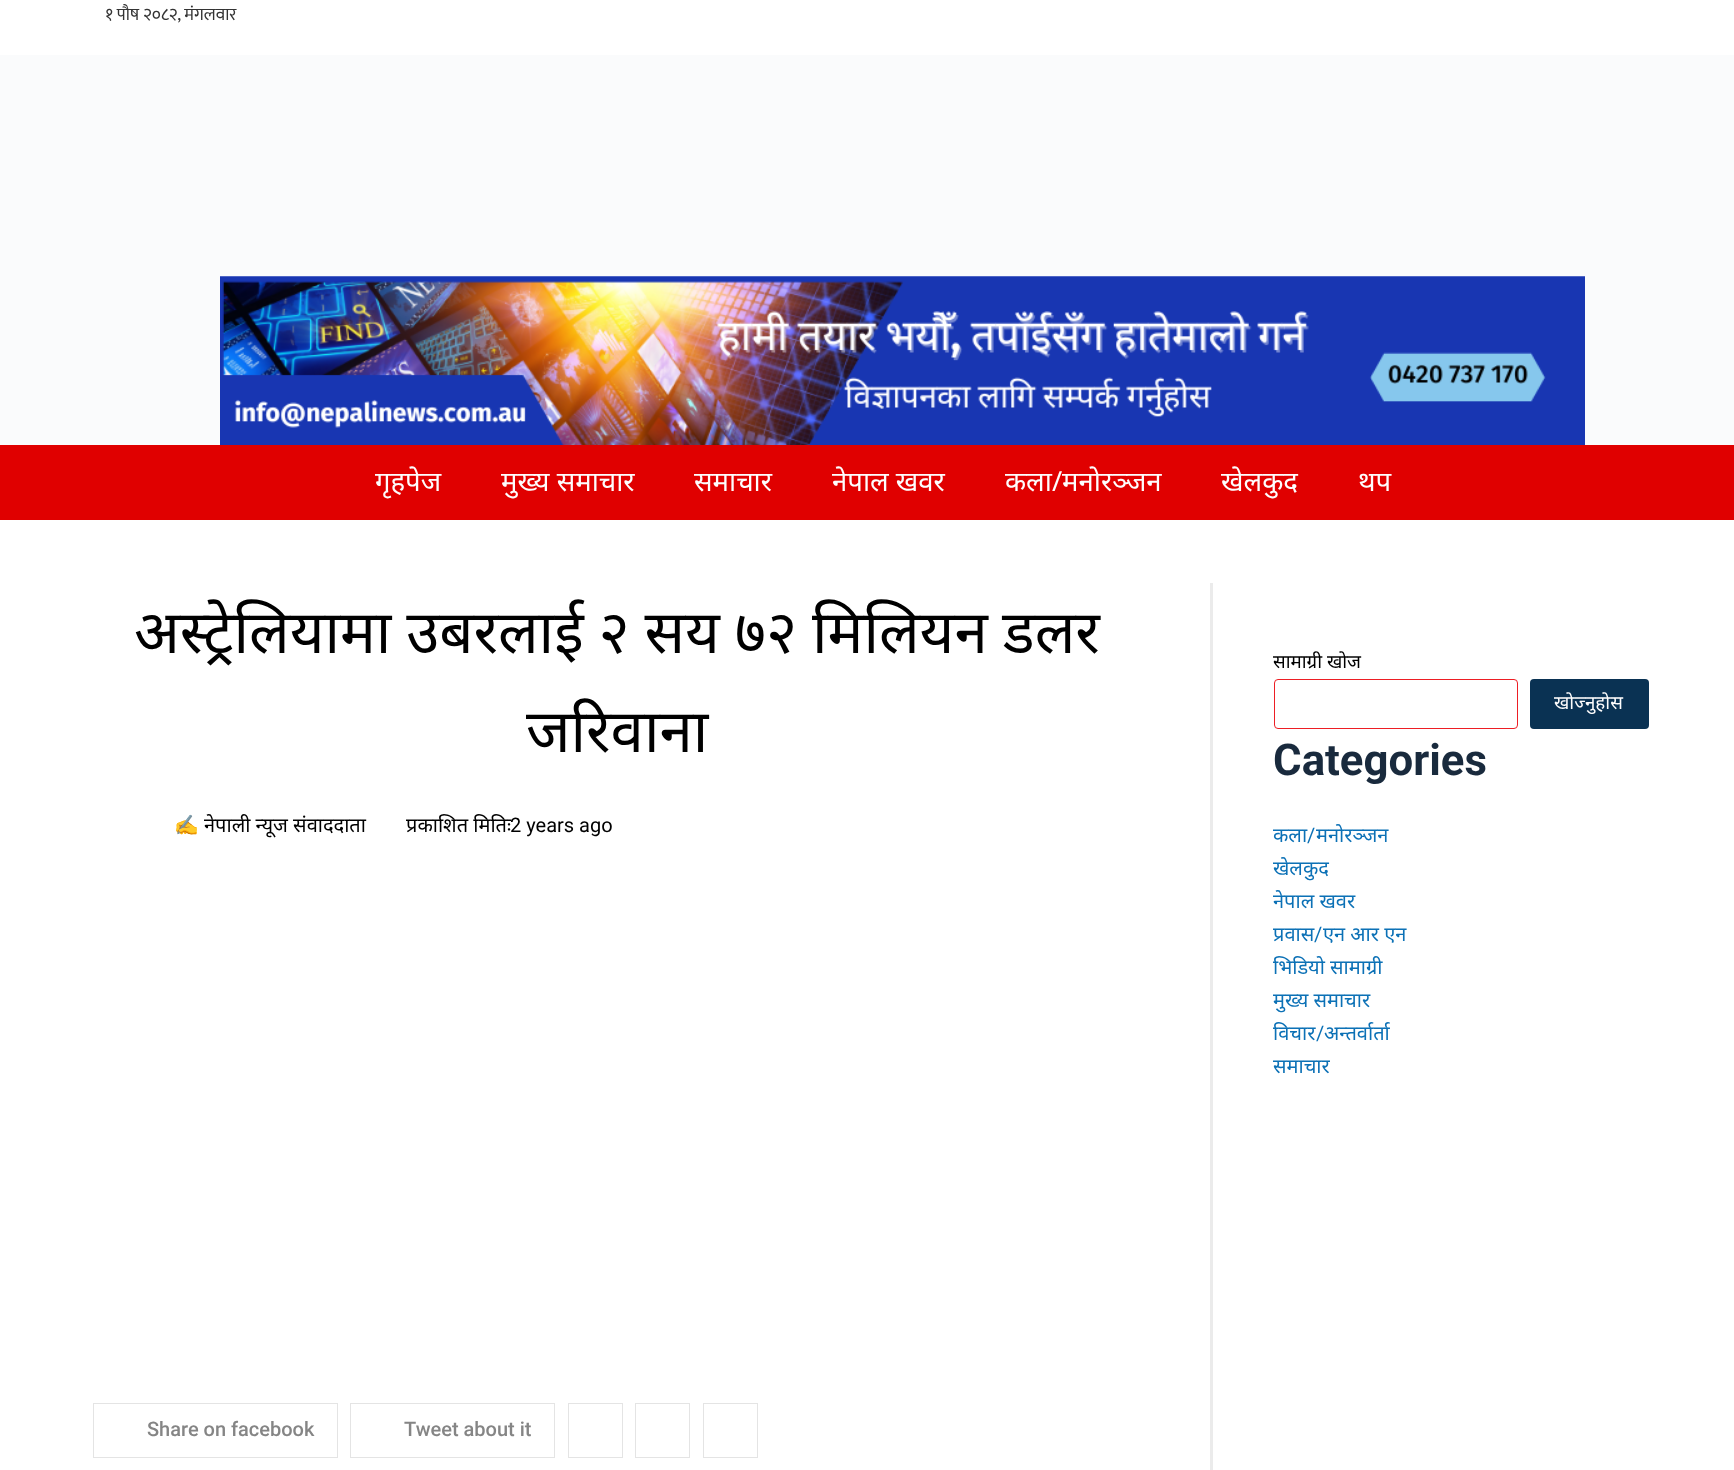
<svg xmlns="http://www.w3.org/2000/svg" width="1734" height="1470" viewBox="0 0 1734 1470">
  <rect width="100%" height="100%" fill="rgb(250,251,252)"/>
  <rect x="0" y="0" width="1734" height="55" fill="rgb(255,255,255)"/>
  <image x="106" y="4" width="131" height="19" href="pic1.png"/>
  <image x="220" y="276" width="1365" height="169" href="pic2.png"/>
  <rect x="0" y="445" width="1734" height="75" fill="rgb(224,0,0)"/>
  <g font-family="Noto Sans" font-size="27.5" fill="rgb(254,253,253)">
    <text x="375" y="491">गृहपेज</text>
    <text x="501" y="491">मुख्य समाचार</text>
    <text x="694" y="491">समाचार</text>
    <text x="832" y="491">नेपाल खवर</text>
    <text x="1005" y="491">कला/मनोरञ्जन</text>
    <text x="1221" y="491">खेलकुद</text>
    <text x="1358" y="491">थप</text>
  </g>
  <rect x="0" y="520" width="1734" height="950" fill="rgb(255,255,255)"/>
  <rect x="1210" y="583" width="3" height="887" fill="rgb(235,235,235)"/>
  <g font-family="Noto Sans" font-size="60" fill="rgb(0,0,0)">
    <text x="134" y="653" word-spacing="-0.75">अस्ट्रेलियामा उबरलाई २ सय ७२ मिलियन डलर</text>
    <text x="526" y="752">जरिवाना</text>
  </g>
  <text x="174" y="832" font-family="Noto Color Emoji" font-size="20" fill="rgb(0,0,0)">✍</text>
  <g font-family="Noto Sans" font-size="20" fill="rgb(0,0,0)">
    <text x="204" y="832">नेपाली न्यूज संवाददाता</text>
    <text x="406" y="832">प्रकाशित मितिः</text>
  </g>
  <text x="510" y="832" font-family="Roboto" font-size="20" fill="rgb(0,0,0)">2 years ago</text>
  <rect x="93.5" y="1403.5" width="244" height="54" fill="none" stroke="rgb(228,228,228)"/>
  <text x="147" y="1436" font-family="Roboto" font-size="20" font-weight="500" fill="rgb(133,133,133)">Share on facebook</text>
  <rect x="350.5" y="1403.5" width="204" height="54" fill="none" stroke="rgb(228,228,228)"/>
  <text x="404" y="1436" font-family="Roboto" font-size="20" font-weight="500" fill="rgb(133,133,133)">Tweet about it</text>
  <rect x="568.5" y="1403.5" width="54" height="54" fill="none" stroke="rgb(228,228,228)"/>
  <rect x="635.5" y="1403.5" width="54" height="54" fill="none" stroke="rgb(228,228,228)"/>
  <rect x="703.5" y="1403.5" width="54" height="54" fill="none" stroke="rgb(228,228,228)"/>
  <text x="1273" y="668" font-family="Noto Sans" font-size="18.75" fill="rgb(0,0,0)">सामाग्री खोज</text>
  <rect x="1274.5" y="679.5" width="243" height="49" rx="3.5" fill="none" stroke="rgb(237,30,36)"/>
  <rect x="1530" y="679" width="119" height="50" rx="4" fill="rgb(10,50,83)"/>
  <text x="1554" y="709" font-family="Noto Sans" font-size="18.75" fill="rgb(254,253,253)">खोज्नुहोस</text>
  <text x="1273" y="775" font-family="Roboto" font-size="43.75" font-weight="bold" fill="rgb(25,42,61)">Categories</text>
  <text x="1273" y="842" font-family="Noto Sans" font-size="20" fill="rgb(12,113,182)">कला</text>
  <text x="1307" y="842" font-family="Roboto" font-size="20" fill="rgb(12,113,182)">/</text>
  <g font-family="Noto Sans" font-size="20" fill="rgb(12,113,182)">
    <text x="1316" y="842">मनोरञ्जन</text>
    <text>
      <tspan x="1273" y="875">खेलकुद</tspan>
      <tspan x="1273" y="908">नेपाल खवर</tspan>
      <tspan x="1273" y="941">प्रवास</tspan>
    </text>
  </g>
  <text x="1314" y="941" font-family="Roboto" font-size="20" fill="rgb(12,113,182)">/</text>
  <g font-family="Noto Sans" font-size="20" fill="rgb(12,113,182)">
    <text x="1323" y="941">एन आर एन</text>
    <text>
      <tspan x="1273" y="974">भिडियो सामाग्री</tspan>
      <tspan x="1273" y="1007">मुख्य समाचार</tspan>
      <tspan x="1273" y="1040">विचार</tspan>
    </text>
  </g>
  <text x="1316" y="1040" font-family="Roboto" font-size="20" fill="rgb(12,113,182)">/</text>
  <g font-family="Noto Sans" font-size="20" fill="rgb(12,113,182)">
    <text x="1324" y="1040">अन्तर्वार्ता</text>
    <text x="1273" y="1073">समाचार</text>
  </g>
</svg>
